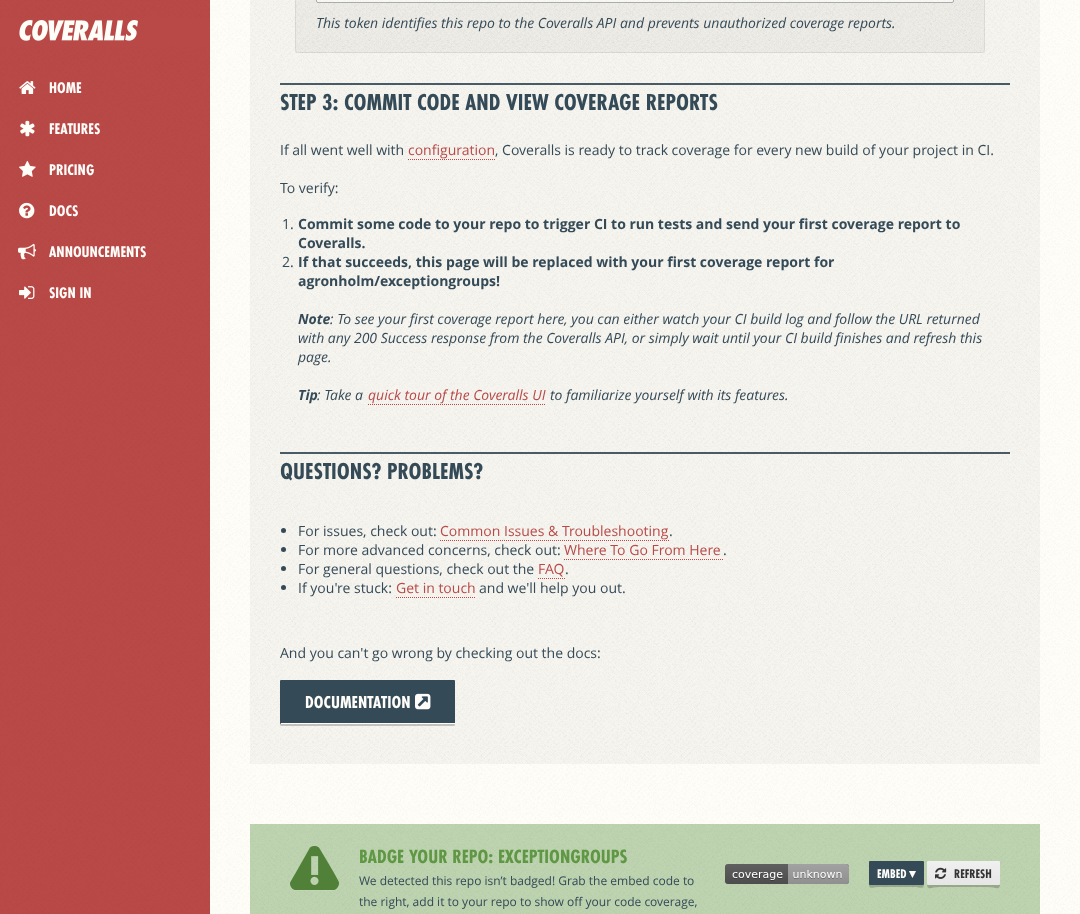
<svg xmlns="http://www.w3.org/2000/svg" width="1080" height="914" viewBox="0 0 1080 914">
  <defs>
    <linearGradient id="g1" gradientUnits="userSpaceOnUse" x1="964" y1="861" x2="964" y2="885"><stop offset="0" stop-color="rgb(240,240,240)"/><stop offset="1" stop-color="rgb(230,230,230)"/></linearGradient>
  </defs>
  <rect width="100%" height="100%" fill="rgb(254,253,248)"/>
  <image x="210" y="0" width="870" height="914" href="pic1.png"/>
  <rect x="0" y="0" width="210" height="914" fill="rgb(185,73,71)"/>
  <image x="0" y="0" width="210" height="914" href="pic2.png"/>
  <rect x="0" y="18" width="210" height="29" fill="rgb(185,73,71)"/>
  <image x="19" y="20" width="119" height="21" href="pic3.png"/>
  <image x="19" y="81" width="17" height="13" href="pic4.png"/>
  <text x="49" y="93" font-family="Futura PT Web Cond" font-size="16" font-weight="bold" fill="rgb(255,253,250)">HOME</text>
  <image x="20" y="120" width="15" height="17" href="pic5.png"/>
  <text x="49" y="134" font-family="Futura PT Web Cond" font-size="16" font-weight="bold" fill="rgb(255,253,250)">FEATURES</text>
  <image x="19" y="160" width="17" height="17" href="pic6.png"/>
  <text x="49" y="175" font-family="Futura PT Web Cond" font-size="16" font-weight="bold" fill="rgb(255,253,250)">PRICING</text>
  <image x="19" y="202" width="16" height="17" href="pic7.png"/>
  <text x="49" y="216" font-family="Futura PT Web Cond" font-size="16" font-weight="bold" fill="rgb(255,253,250)">DOCS</text>
  <image x="18" y="243" width="18" height="17" href="pic8.png"/>
  <text x="49" y="257" font-family="Futura PT Web Cond" font-size="16" font-weight="bold" fill="rgb(255,253,250)">ANNOUNCEMENTS</text>
  <image x="19" y="286" width="16" height="13" href="pic9.png"/>
  <text x="49" y="298" font-family="Futura PT Web Cond" font-size="16" font-weight="bold" fill="rgb(255,253,250)">SIGN IN</text>
  <rect x="250" y="0" width="790" height="764" fill="rgba(0,0,0,0.03)"/>
  <image x="250" y="0" width="790" height="764" href="pic10.png"/>
  <rect x="295" y="0" width="690" height="53" fill="rgba(0,0,0,0.03)"/>
  <image x="295" y="0" width="689" height="53" href="pic11.png"/>
  <rect x="295.5" y="-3.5" width="689" height="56" rx="2.5" fill="none" stroke="rgba(0,0,0,0.07)"/>
  <rect x="316" y="-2" width="638" height="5" rx="2" fill="rgba(255,255,255,0.6)"/>
  <rect x="316.5" y="-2.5" width="637" height="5" rx="1.5" fill="none" stroke="rgba(0,0,0,0.3)"/>
  <text x="316" y="28" font-family="Open Sans" font-size="14" font-style="italic" fill="rgb(53,74,87)">This token identifies this repo to the Coveralls API and prevents unauthorized coverage reports.</text>
  <rect x="280" y="83" width="730" height="2" fill="rgba(53,74,87,0.9)"/>
  <text x="280" y="110" font-family="Futura PT Web Cond" font-size="24" font-weight="bold" fill="rgb(53,74,87)">STEP 3: COMMIT CODE AND VIEW COVERAGE REPORTS</text>
  <text x="280" y="155" font-family="Open Sans" font-size="14" fill="rgb(53,74,87)">If all went well with</text>
  <text x="408" y="155" font-family="Open Sans" font-size="14" fill="rgb(185,73,71)">configuration</text>
  <path d="M408 159.5H495" fill="none" stroke="rgb(185,73,71)" stroke-dasharray="1 1"/>
  <g font-family="Open Sans" font-size="14" fill="rgb(53,74,87)">
    <text x="495" y="155">, Coveralls is ready to track coverage for every new build of your project in CI.</text>
    <text x="280" y="193">To verify:</text>
    <text x="282" y="229">1.</text>
  </g>
  <g font-family="Open Sans" font-size="14" font-weight="bold" fill="rgb(53,74,87)">
    <text>
      <tspan x="298" y="229">Commit some code to your repo to trigger CI to run tests and send your first coverage report to</tspan>
      <tspan x="298" y="248">Coveralls.</tspan>
    </text>
  </g>
  <text x="282" y="267" font-family="Open Sans" font-size="14" fill="rgb(53,74,87)">2.</text>
  <g font-family="Open Sans" font-size="14" font-weight="bold" fill="rgb(53,74,87)">
    <text>
      <tspan x="298" y="267">If that succeeds, this page will be replaced with your first coverage report for</tspan>
      <tspan x="298" y="286">agronholm/exceptiongroups!</tspan>
    </text>
  </g>
  <text x="298" y="324" font-family="Open Sans" font-size="14" font-weight="bold" font-style="italic" fill="rgb(53,74,87)">Note</text>
  <g font-family="Open Sans" font-size="14" font-style="italic" fill="rgb(53,74,87)">
    <text x="330" y="324">: To see your first coverage report here, you can either watch your CI build log and follow the URL returned</text>
    <text>
      <tspan x="298" y="343">with any 200 Success response from the Coveralls API, or simply wait until your CI build finishes and refresh this</tspan>
      <tspan x="298" y="362">page.</tspan>
    </text>
  </g>
  <text x="298" y="400" font-family="Open Sans" font-size="14" font-weight="bold" font-style="italic" fill="rgb(53,74,87)">Tip</text>
  <text x="317" y="400" font-family="Open Sans" font-size="14" font-style="italic" fill="rgb(53,74,87)">: Take a</text>
  <text x="368" y="400" font-family="Open Sans" font-size="14" font-style="italic" fill="rgb(185,73,71)">quick tour of the Coveralls UI</text>
  <path d="M368 404.5H546" fill="none" stroke="rgb(185,73,71)" stroke-dasharray="1 1"/>
  <text x="550" y="400" font-family="Open Sans" font-size="14" font-style="italic" fill="rgb(53,74,87)">to familiarize yourself with its features.</text>
  <rect x="280" y="452" width="730" height="2" fill="rgba(53,74,87,0.9)"/>
  <text x="280" y="479" font-family="Futura PT Web Cond" font-size="24" font-weight="bold" fill="rgb(53,74,87)">QUESTIONS? PROBLEMS?</text>
  <circle cx="283.5" cy="530.5" r="2.5" fill="rgb(53,74,87)"/>
  <text x="298" y="536" font-family="Open Sans" font-size="14" fill="rgb(53,74,87)">For issues, check out:</text>
  <text x="440" y="536" font-family="Open Sans" font-size="14" fill="rgb(185,73,71)">Common Issues &amp; Troubleshooting</text>
  <path d="M440 540.5H669" fill="none" stroke="rgb(185,73,71)" stroke-dasharray="1 1"/>
  <text x="669" y="536" font-family="Open Sans" font-size="14" fill="rgb(53,74,87)">.</text>
  <circle cx="283.5" cy="549.5" r="2.5" fill="rgb(53,74,87)"/>
  <text x="298" y="555" font-family="Open Sans" font-size="14" fill="rgb(53,74,87)">For more advanced concerns, check out:</text>
  <text x="564" y="555" font-family="Open Sans" font-size="14" fill="rgb(185,73,71)">Where To Go From Here</text>
  <path d="M564 559.5H723" fill="none" stroke="rgb(185,73,71)" stroke-dasharray="1 1"/>
  <text x="723" y="555" font-family="Open Sans" font-size="14" fill="rgb(53,74,87)">.</text>
  <circle cx="283.5" cy="568.5" r="2.5" fill="rgb(53,74,87)"/>
  <text x="298" y="574" font-family="Open Sans" font-size="14" fill="rgb(53,74,87)">For general questions, check out the</text>
  <text x="538" y="574" font-family="Open Sans" font-size="14" fill="rgb(185,73,71)">FAQ</text>
  <path d="M538 578.5H565" fill="none" stroke="rgb(185,73,71)" stroke-dasharray="1 1"/>
  <text x="565" y="574" font-family="Open Sans" font-size="14" fill="rgb(53,74,87)">.</text>
  <circle cx="283.5" cy="587.5" r="2.5" fill="rgb(53,74,87)"/>
  <text x="298" y="593" font-family="Open Sans" font-size="14" fill="rgb(53,74,87)">If you're stuck:</text>
  <text x="396" y="593" font-family="Open Sans" font-size="14" fill="rgb(185,73,71)">Get in touch</text>
  <path d="M396 597.5H475" fill="none" stroke="rgb(185,73,71)" stroke-dasharray="1 1"/>
  <g font-family="Open Sans" font-size="14" fill="rgb(53,74,87)">
    <text x="479" y="593">and we'll help you out.</text>
    <text x="280" y="658">And you can't go wrong by checking out the docs:</text>
  </g>
  <path d="M280 723C280 724 280 726 281 726H454C455 726 455 724 455 723L454 724H281Z" fill="rgba(0,0,0,0.2)"/>
  <rect x="280" y="680" width="175" height="44" rx="1" fill="rgb(53,74,87)"/>
  <rect x="281" y="723" width="174" height="1" fill="rgb(255,253,250)"/>
  <text x="305" y="708" font-family="Futura PT Web Cond" font-size="18" font-weight="bold" fill="rgb(255,253,250)">DOCUMENTATION</text>
  <image x="415" y="693" width="16" height="17" href="pic12.png"/>
  <rect x="250" y="824" width="790" height="90" fill="rgba(95,151,68,0.4)"/>
  <image x="250" y="824" width="790" height="90" href="pic13.png"/>
  <image x="290" y="846" width="49" height="45" href="pic14.png"/>
  <text x="359" y="863" font-family="Futura PT Web Cond" font-size="20" font-weight="bold" fill="rgb(95,151,68)">BADGE YOUR REPO: EXCEPTIONGROUPS</text>
  <g font-family="Open Sans" font-size="12" fill="rgb(53,74,87)">
    <text>
      <tspan x="359" y="885">We detected this repo isn’t badged! Grab the embed code to</tspan>
      <tspan x="359" y="906">the right, add it to your repo to show off your code coverage,</tspan>
    </text>
  </g>
  <image x="725" y="864" width="124" height="20" href="pic15.png"/>
  <path d="M869 884C869 890 872 887 879 887H914C921 887 924 890 924 884L923 885H870Z" fill="rgba(0,0,0,0.2)"/>
  <rect x="869" y="861" width="55" height="24" rx="1" fill="rgb(53,74,87)"/>
  <text x="877" y="878" font-family="Futura PT Web Cond" font-size="13" font-weight="bold" fill="rgb(255,253,250)">EMBED</text>
  <text x="909" y="878" font-family="DejaVu Sans" font-size="13" font-weight="bold" fill="rgb(255,253,250)">▾</text>
  <path d="M927 884C927 891 931 887 940 887H987C996 887 1000 891 1000 884L999 885H928Z" fill="rgba(0,0,0,0.2)"/>
  <rect x="927" y="861" width="73" height="24" rx="1" fill="url(#g1)"/>
  <image x="935" y="867" width="12" height="12" href="pic16.png"/>
  <text x="954" y="878" font-family="Futura PT Web Cond" font-size="13" font-weight="bold" fill="rgb(51,51,51)">REFRESH</text>
</svg>
